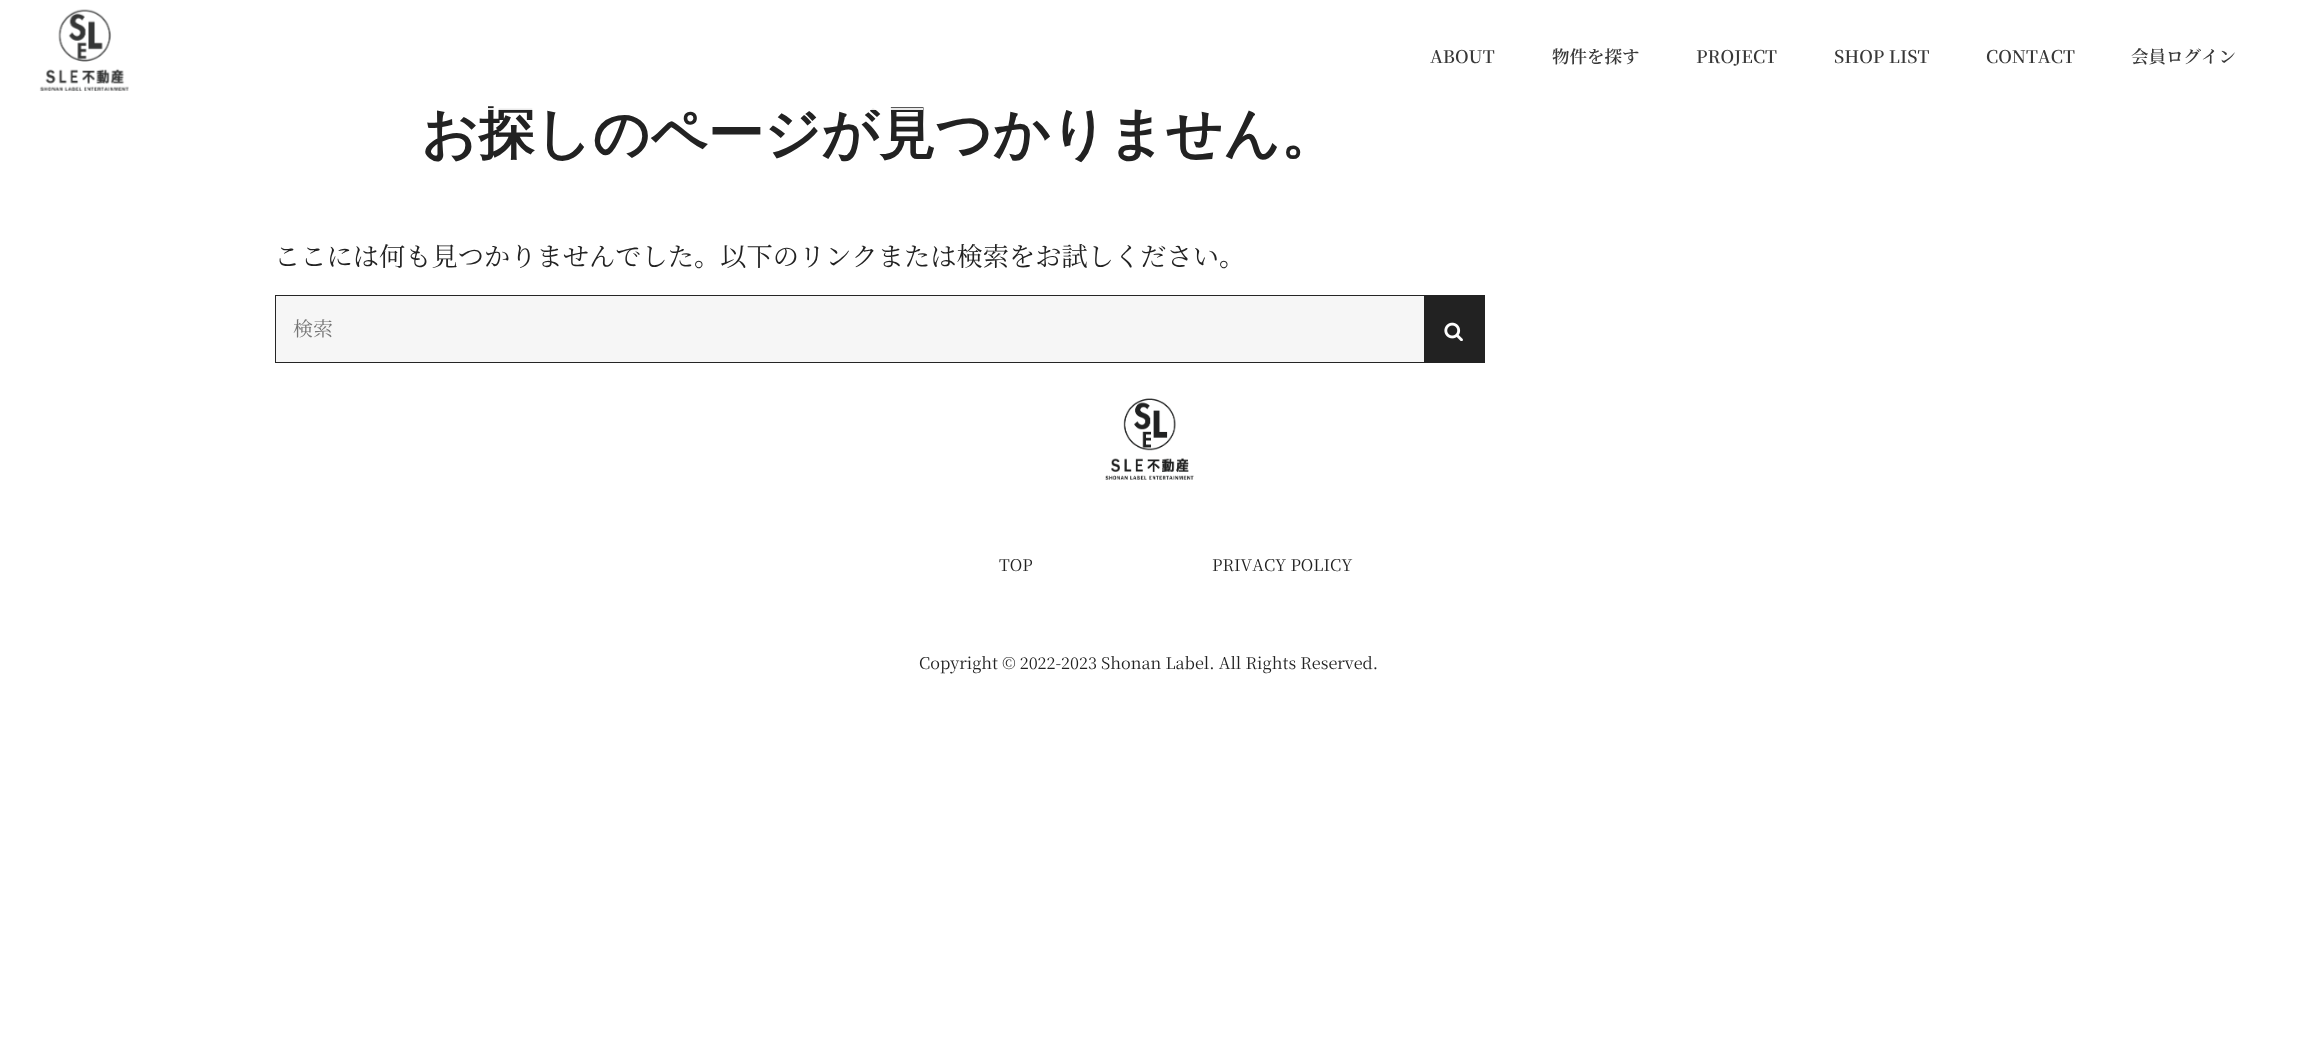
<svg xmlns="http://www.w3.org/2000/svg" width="2298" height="1043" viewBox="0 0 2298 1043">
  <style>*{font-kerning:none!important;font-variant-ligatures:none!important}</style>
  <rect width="100%" height="100%" fill="rgb(255,255,255)"/>
  <text x="421" y="153" font-family="WenQuanYi Zen Hei" font-size="56.25" font-weight="bold" fill="rgb(34,34,34)">お探しのページが見つかりません。</text>
  <rect x="488" y="108" width="435" height="2" fill="rgba(255,255,255,0.9)"/>
  <image x="39" y="9" width="90" height="82" href="pic1.png"/>
  <g font-family="Noto Serif JP" font-size="17.5" font-weight="600" fill="rgb(56,56,56)">
    <text x="1430" y="63">ABOUT</text>
    <text x="1552" y="63">物件を探す</text>
    <text x="1696" y="63">PROJECT</text>
    <text x="1834" y="63">SHOP LIST</text>
    <text x="1986" y="63">CONTACT</text>
    <text x="2131" y="63">会員ログイン</text>
  </g>
  <text x="274" y="266" font-family="Noto Serif JP" font-size="26.25" fill="rgb(34,34,34)">ここには何も見つかりませんでした。以下のリンクまたは検索をお試しください。</text>
  <rect x="276" y="296" width="1148" height="66" fill="rgb(246,246,246)"/>
  <rect x="275.5" y="295.5" width="1209" height="67" fill="none" stroke="rgb(37,37,37)"/>
  <text x="293" y="336" font-family="Noto Serif JP" font-size="20" fill="rgb(117,117,117)">検索</text>
  <rect x="1424" y="295" width="61" height="68" fill="rgb(34,34,34)"/>
  <image x="1444" y="322" width="19" height="19" href="pic2.png"/>
  <image x="1105" y="398" width="89" height="82" href="pic3.png"/>
  <g font-family="Noto Serif JP" font-size="16.25" fill="rgb(34,34,34)">
    <text x="999" y="571">TOP</text>
    <text x="1212" y="571">PRIVACY POLICY</text>
    <text x="919" y="669">Copyright © 2022-2023 Shonan Label. All Rights Reserved.</text>
  </g>
</svg>
